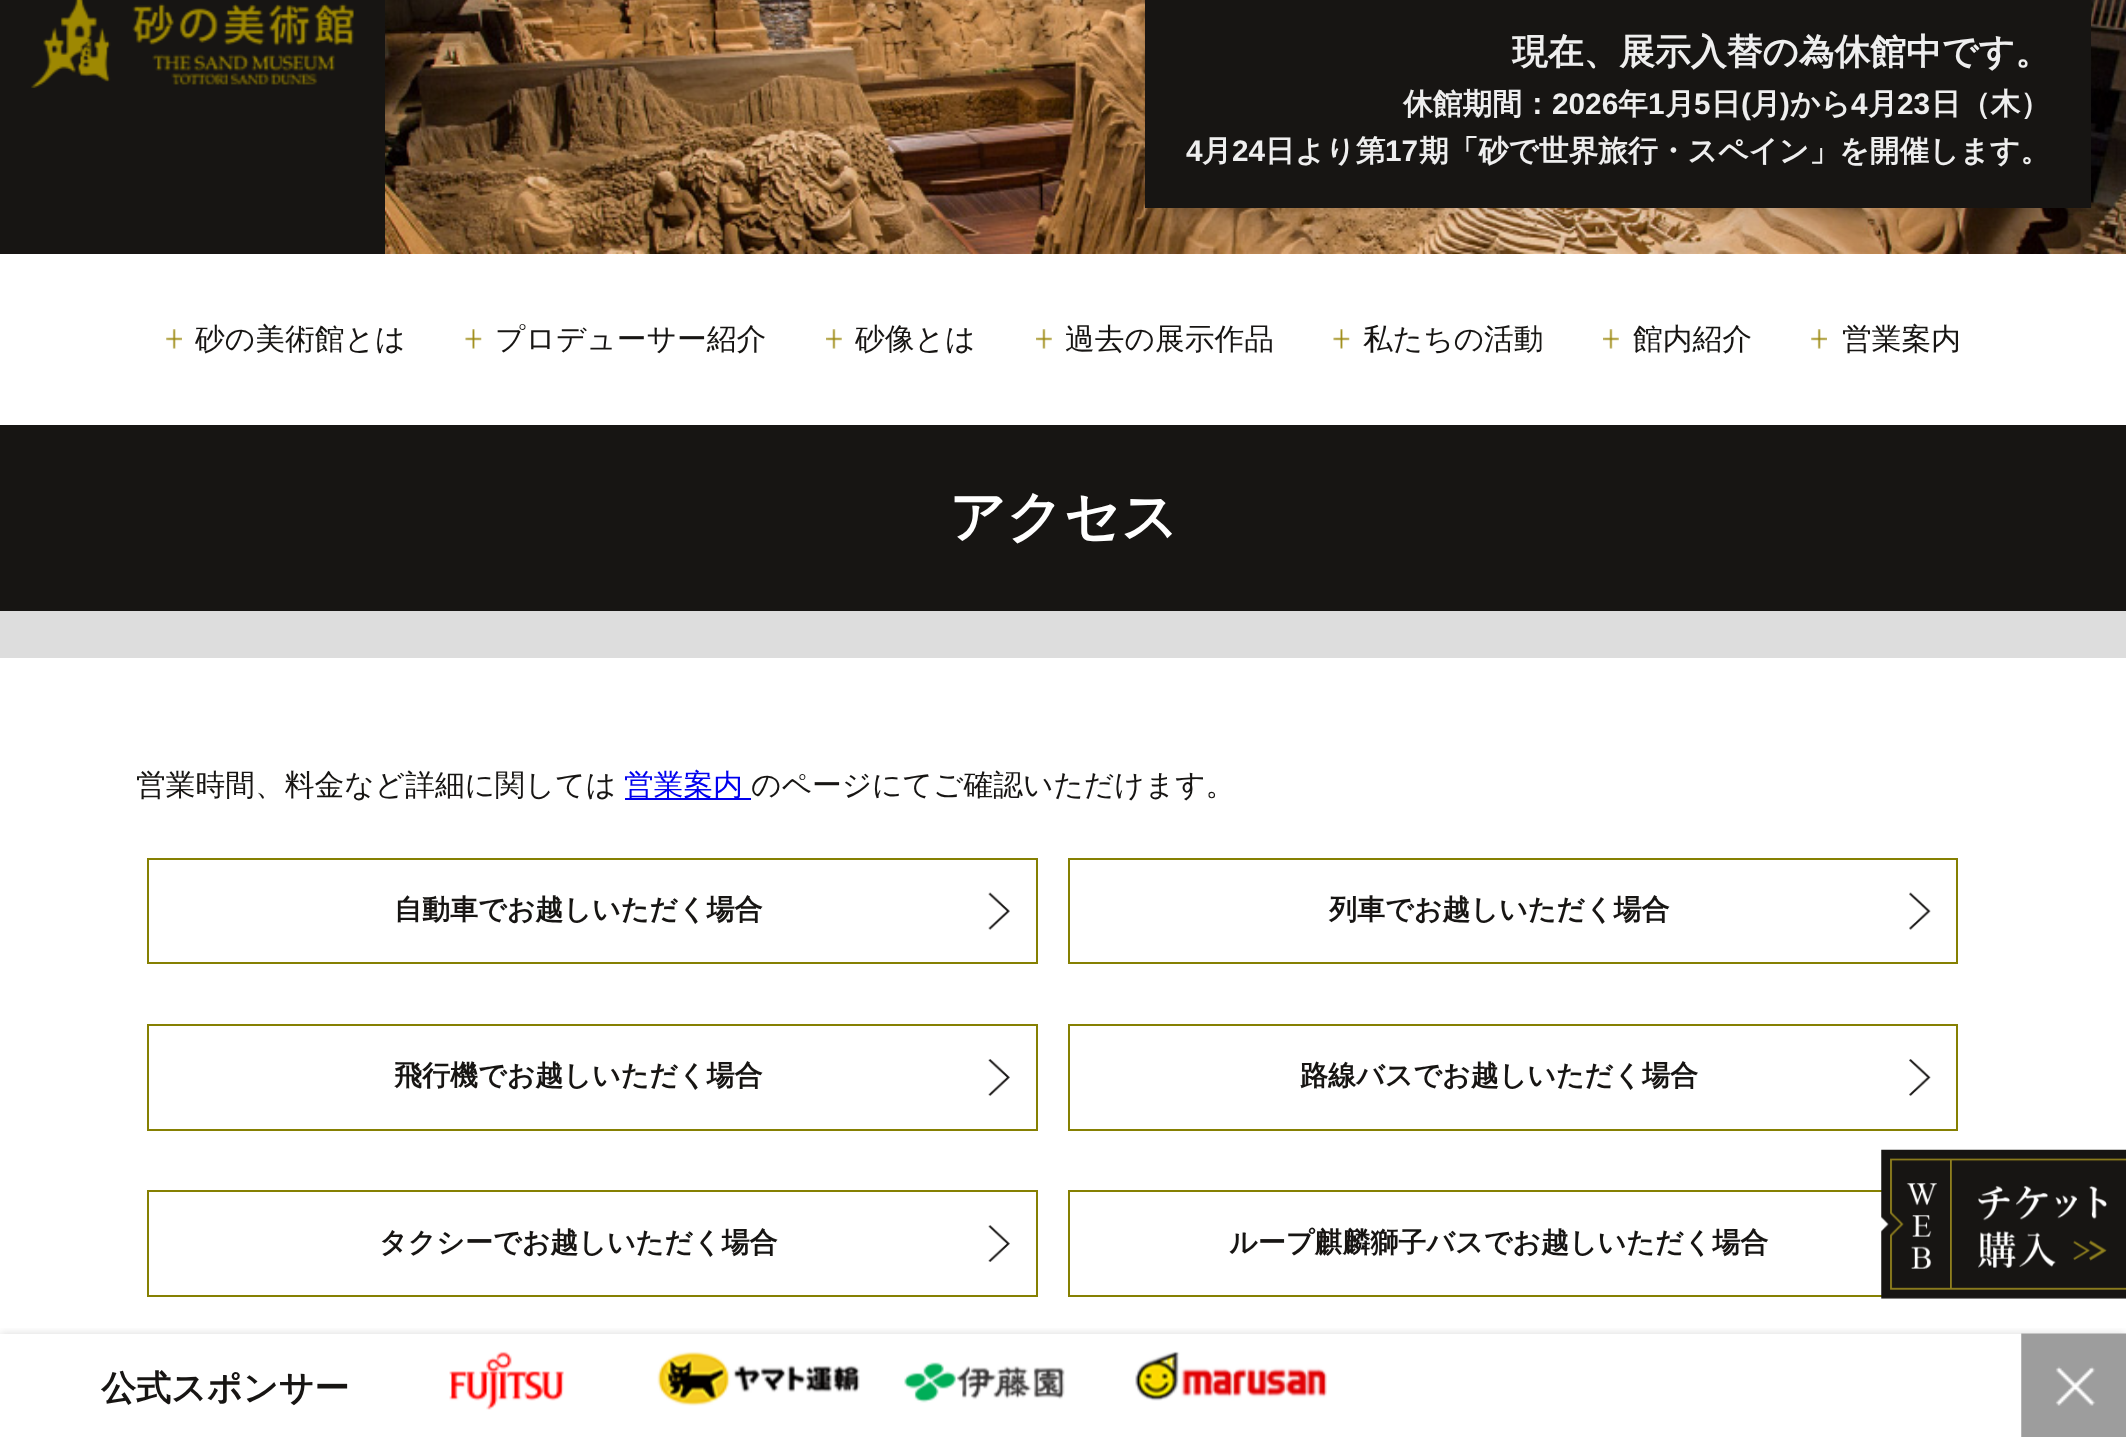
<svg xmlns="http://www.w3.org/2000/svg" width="2126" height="1437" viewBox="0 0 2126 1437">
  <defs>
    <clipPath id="clip1"><rect x="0" y="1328" width="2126" height="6"/></clipPath>
  </defs>
  <rect width="100%" height="100%" fill="rgb(255,255,255)"/>
  <rect x="0" y="0" width="385" height="254" fill="rgb(23,21,19)"/>
  <image x="31" y="0" width="323" height="88" href="pic1.png"/>
  <image x="385" y="0" width="1741" height="254" href="pic2.png"/>
  <rect x="1145" y="-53" width="946" height="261" fill="rgba(0,0,0,0.15)" filter="blur(17.5px)"/>
  <rect x="1145" y="0" width="946" height="208" fill="rgb(23,21,19)"/>
  <text x="1512" y="64" font-family="WenQuanYi Zen Hei" font-size="35.75" font-weight="bold" fill="rgb(238,238,238)">現在、展示入替の為休館中です。</text>
  <text x="1403" y="114" font-family="WenQuanYi Zen Hei" font-size="29.75" font-weight="bold" fill="rgb(238,238,238)">休館期間：</text>
  <text x="1552" y="114" font-family="Liberation Sans" font-size="29.75" font-weight="bold" fill="rgb(238,238,238)">2026</text>
  <text x="1618" y="114" font-family="WenQuanYi Zen Hei" font-size="29.75" font-weight="bold" fill="rgb(238,238,238)">年</text>
  <text x="1648" y="114" font-family="Liberation Sans" font-size="29.75" font-weight="bold" fill="rgb(238,238,238)">1</text>
  <text x="1665" y="114" font-family="WenQuanYi Zen Hei" font-size="29.75" font-weight="bold" fill="rgb(238,238,238)">月</text>
  <text x="1694" y="114" font-family="Liberation Sans" font-size="29.75" font-weight="bold" fill="rgb(238,238,238)">5</text>
  <text x="1711" y="114" font-family="WenQuanYi Zen Hei" font-size="29.75" font-weight="bold" fill="rgb(238,238,238)">日</text>
  <text x="1741" y="114" font-family="Liberation Sans" font-size="29.75" font-weight="bold" fill="rgb(238,238,238)">(</text>
  <text x="1751" y="114" font-family="WenQuanYi Zen Hei" font-size="29.75" font-weight="bold" fill="rgb(238,238,238)">月</text>
  <text x="1780" y="114" font-family="Liberation Sans" font-size="29.75" font-weight="bold" fill="rgb(238,238,238)">)</text>
  <text x="1790" y="114" font-family="WenQuanYi Zen Hei" font-size="29.75" font-weight="bold" fill="rgb(238,238,238)">から</text>
  <text x="1851" y="114" font-family="Liberation Sans" font-size="29.75" font-weight="bold" fill="rgb(238,238,238)">4</text>
  <text x="1868" y="114" font-family="WenQuanYi Zen Hei" font-size="29.75" font-weight="bold" fill="rgb(238,238,238)">月</text>
  <text x="1897" y="114" font-family="Liberation Sans" font-size="29.75" font-weight="bold" fill="rgb(238,238,238)">23</text>
  <text x="1931" y="114" font-family="WenQuanYi Zen Hei" font-size="29.75" font-weight="bold" fill="rgb(238,238,238)">日（木）</text>
  <text x="1186" y="161" font-family="Liberation Sans" font-size="29.75" font-weight="bold" fill="rgb(238,238,238)">4</text>
  <text x="1202" y="161" font-family="WenQuanYi Zen Hei" font-size="29.75" font-weight="bold" fill="rgb(238,238,238)">月</text>
  <text x="1232" y="161" font-family="Liberation Sans" font-size="29.75" font-weight="bold" fill="rgb(238,238,238)">24</text>
  <text x="1265" y="161" font-family="WenQuanYi Zen Hei" font-size="29.75" font-weight="bold" fill="rgb(238,238,238)">日より第</text>
  <text x="1385" y="161" font-family="Liberation Sans" font-size="29.75" font-weight="bold" fill="rgb(238,238,238)">17</text>
  <text x="1419" y="161" font-family="WenQuanYi Zen Hei" font-size="29.75" font-weight="bold" fill="rgb(238,238,238)">期「砂で世界旅行・スペイン」を開催します。</text>
  <image x="166" y="329" width="16" height="20" href="pic3.png"/>
  <text x="195" y="349" font-family="WenQuanYi Zen Hei" font-size="29.75" font-weight="500" fill="rgb(23,21,19)">砂の美術館とは</text>
  <image x="465" y="329" width="17" height="20" href="pic4.png"/>
  <text x="495" y="349" font-family="WenQuanYi Zen Hei" font-size="29.75" font-weight="500" fill="rgb(23,21,19)">プロデューサー紹介</text>
  <image x="826" y="329" width="16" height="20" href="pic5.png"/>
  <text x="855" y="349" font-family="WenQuanYi Zen Hei" font-size="29.75" font-weight="500" fill="rgb(23,21,19)">砂像とは</text>
  <image x="1036" y="329" width="16" height="20" href="pic5.png"/>
  <text x="1065" y="349" font-family="WenQuanYi Zen Hei" font-size="29.75" font-weight="500" fill="rgb(23,21,19)">過去の展示作品</text>
  <image x="1333" y="329" width="17" height="20" href="pic4.png"/>
  <text x="1363" y="349" font-family="WenQuanYi Zen Hei" font-size="29.75" font-weight="500" fill="rgb(23,21,19)">私たちの活動</text>
  <image x="1603" y="329" width="16" height="20" href="pic5.png"/>
  <text x="1633" y="349" font-family="WenQuanYi Zen Hei" font-size="29.75" font-weight="500" fill="rgb(23,21,19)">館内紹介</text>
  <image x="1811" y="329" width="16" height="20" href="pic3.png"/>
  <text x="1842" y="349" font-family="WenQuanYi Zen Hei" font-size="29.75" font-weight="500" fill="rgb(23,21,19)">営業案内</text>
  <rect x="0" y="425" width="2126" height="186" fill="rgb(23,21,19)"/>
  <text x="949" y="536" font-family="WenQuanYi Zen Hei" font-size="56" font-weight="bold" fill="rgb(255,255,255)">アクセス</text>
  <rect x="0" y="611" width="2126" height="47" fill="rgb(221,221,221)"/>
  <text x="136" y="795" font-family="WenQuanYi Zen Hei" font-size="29.75" font-weight="500" fill="rgb(23,21,19)">営業時間、料金など詳細に関しては</text>
  <rect x="625" y="798" width="126" height="2" fill="rgb(0,0,238)"/>
  <text x="624" y="795" font-family="WenQuanYi Zen Hei" font-size="29.75" font-weight="500" fill="rgb(0,0,238)">営業案内</text>
  <text x="751" y="795" font-family="WenQuanYi Zen Hei" font-size="29.75" font-weight="500" fill="rgb(23,21,19)">のページにてご確認いただけます。</text>
  <image x="988" y="892" width="22" height="38" href="pic6.png"/>
  <rect x="148" y="859" width="889" height="104" fill="none" stroke="rgb(134,128,2)" stroke-width="2"/>
  <text x="394" y="919" font-family="WenQuanYi Zen Hei" font-size="28" font-weight="bold" fill="rgb(23,21,19)">自動車でお越しいただく場合</text>
  <image x="1909" y="892" width="22" height="38" href="pic7.png"/>
  <rect x="1069" y="859" width="888" height="104" fill="none" stroke="rgb(134,128,2)" stroke-width="2"/>
  <text x="1329" y="919" font-family="WenQuanYi Zen Hei" font-size="28" font-weight="bold" fill="rgb(23,21,19)">列車でお越しいただく場合</text>
  <image x="988" y="1059" width="22" height="37" href="pic8.png"/>
  <rect x="148" y="1025" width="889" height="105" fill="none" stroke="rgb(134,128,2)" stroke-width="2"/>
  <text x="394" y="1085" font-family="WenQuanYi Zen Hei" font-size="28" font-weight="bold" fill="rgb(23,21,19)">飛行機でお越しいただく場合</text>
  <image x="1909" y="1059" width="22" height="37" href="pic9.png"/>
  <rect x="1069" y="1025" width="888" height="105" fill="none" stroke="rgb(134,128,2)" stroke-width="2"/>
  <text x="1300" y="1085" font-family="WenQuanYi Zen Hei" font-size="28" font-weight="bold" fill="rgb(23,21,19)">路線バスでお越しいただく場合</text>
  <image x="988" y="1225" width="22" height="37" href="pic10.png"/>
  <rect x="148" y="1191" width="889" height="105" fill="none" stroke="rgb(134,128,2)" stroke-width="2"/>
  <text x="379" y="1252" font-family="WenQuanYi Zen Hei" font-size="28" font-weight="bold" fill="rgb(23,21,19)">タクシーでお越しいただく場合</text>
  <rect x="1069" y="1191" width="888" height="105" fill="none" stroke="rgb(134,128,2)" stroke-width="2"/>
  <text x="1229" y="1252" font-family="WenQuanYi Zen Hei" font-size="28" font-weight="bold" fill="rgb(23,21,19)">ループ麒麟獅子バスでお越しいただく場合</text>
  <image x="1881" y="1149" width="245" height="150" href="pic11.png"/>
  <g clip-path="url(#clip1)">
    <rect x="0" y="1334" width="2126" height="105" fill="rgba(0,0,0,0.15)" filter="blur(5px)"/>
  </g>
  <text x="101" y="1400" font-family="WenQuanYi Zen Hei" font-size="35" font-weight="bold" fill="rgb(23,21,19)">公式スポンサー</text>
  <image x="449" y="1351" width="115" height="59" href="pic12.png"/>
  <image x="657" y="1351" width="203" height="55" href="pic13.png"/>
  <image x="904" y="1362" width="161" height="41" href="pic14.png"/>
  <image x="1135" y="1351" width="192" height="50" href="pic15.png"/>
  <image x="2021" y="1333" width="105" height="104" href="pic16.png"/>
</svg>
